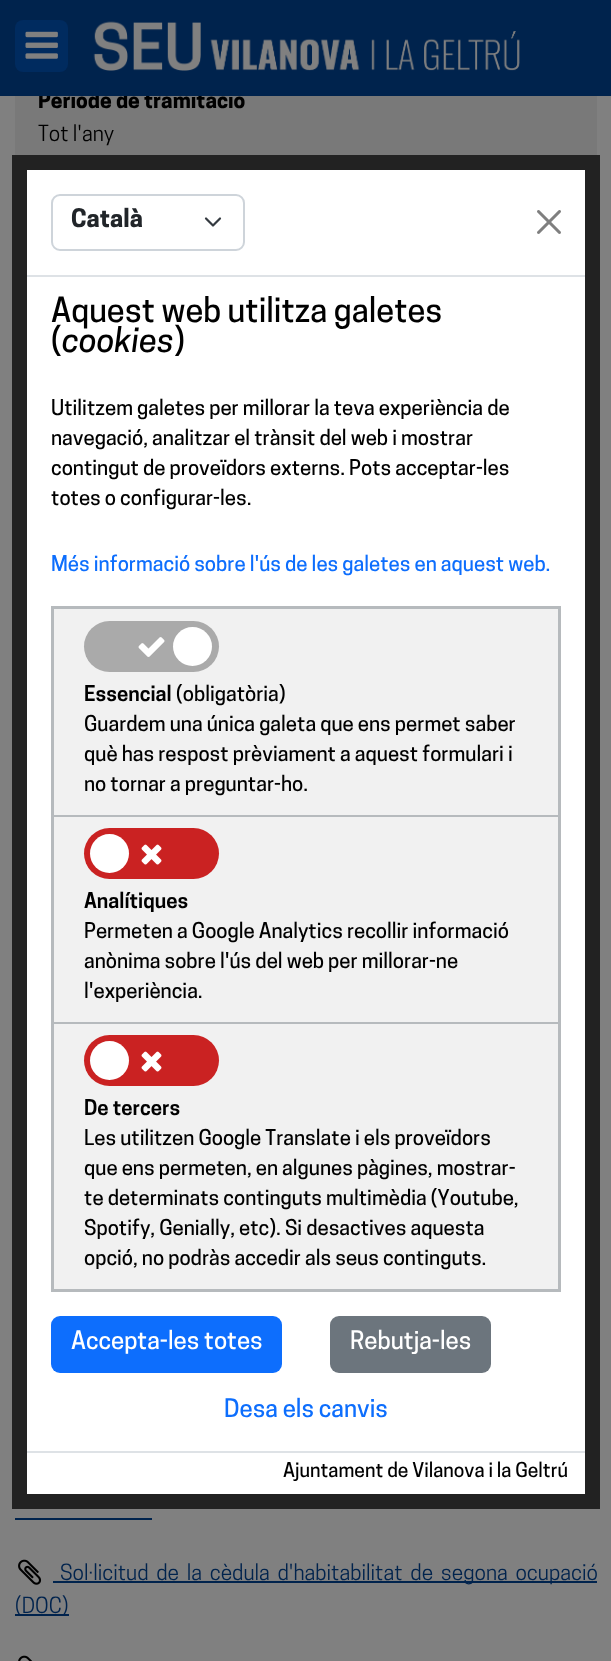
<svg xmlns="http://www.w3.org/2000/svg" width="611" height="1661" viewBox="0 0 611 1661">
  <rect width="100%" height="100%" fill="rgb(128,128,128)"/>
  <rect x="15" y="96" width="582" height="59" fill="rgb(121,121,121)"/>
  <text x="38" y="108" font-family="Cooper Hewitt" font-size="21" font-weight="bold" fill="rgb(0,0,0)">Període de tramitació</text>
  <rect x="0" y="0" width="611" height="96" fill="rgb(0,35,77)"/>
  <rect x="15" y="20" width="53" height="52" rx="8" fill="rgb(0,43,95)"/>
  <image x="25" y="31" width="33" height="28" href="pic1.png"/>
  <image x="93" y="21" width="427" height="50" href="pic2.png"/>
  <text x="38" y="141" font-family="Cooper Hewitt" font-size="21" fill="rgb(0,0,0)">Tot l'any</text>
  <rect x="15" y="1518" width="137" height="2" fill="rgb(0,35,77)"/>
  <image x="18" y="1559" width="24" height="26" href="pic3.png"/>
  <rect x="53" y="1581" width="544" height="2" fill="rgb(0,35,77)"/>
  <text x="60" y="1580" word-spacing="3.5" font-family="Cooper Hewitt" font-size="21" fill="rgb(0,35,77)">Sol·licitud de la cèdula d'habitabilitat de segona ocupació</text>
  <rect x="15" y="1614" width="54" height="2" fill="rgb(0,35,77)"/>
  <text x="15" y="1613" font-family="Cooper Hewitt" font-size="21" fill="rgb(0,35,77)">(DOC)</text>
  <image x="18" y="1655" width="15" height="6" href="pic4.png"/>
  <rect x="19.5" y="162.5" width="573" height="1339" fill="rgb(255,255,255)" stroke="rgb(34,34,34)" stroke-width="15"/>
  <rect x="27" y="275" width="558" height="2" fill="rgb(222,226,230)"/>
  <path d="M206 218.5L213 225.5L220 218.5" fill="none" stroke="rgb(52,58,64)" stroke-width="2.2" stroke-linecap="round" stroke-linejoin="round"/>
  <rect x="52" y="195" width="192" height="55" rx="8" fill="none" stroke="rgb(206,212,218)" stroke-width="2"/>
  <text x="71" y="227" font-family="Cooper Hewitt" font-size="24" font-weight="bold" fill="rgb(33,37,41)">Català</text>
  <image x="537" y="210" width="24" height="24" href="pic5.png"/>
  <g font-family="Cooper Hewitt" font-size="32.5" font-weight="500" fill="rgb(0,0,0)">
    <text>
      <tspan x="51" y="322">Aquest web utilitza galetes</tspan>
      <tspan x="51" y="352">(</tspan>
    </text>
  </g>
  <text x="62" y="352" font-family="Cooper Hewitt" font-size="32.5" font-weight="500" font-style="italic" fill="rgb(0,0,0)">cookies</text>
  <text x="174" y="352" font-family="Cooper Hewitt" font-size="32.5" font-weight="500" fill="rgb(0,0,0)">)</text>
  <g font-family="Cooper Hewitt" font-size="20.4" font-weight="500" fill="rgb(0,0,0)">
    <text>
      <tspan x="51" y="415">Utilitzem galetes per millorar la teva experiència de</tspan>
      <tspan x="51" y="445">navegació, analitzar el trànsit del web i mostrar</tspan>
      <tspan x="51" y="475">contingut de proveïdors externs. Pots acceptar-les</tspan>
      <tspan x="51" y="505">totes o configurar-les.</tspan>
    </text>
  </g>
  <text x="51" y="571" font-family="Cooper Hewitt" font-size="20.4" font-weight="500" fill="rgb(13,110,253)">Més informació sobre l'ús de les galetes en aquest web.</text>
  <rect x="52.5" y="607.5" width="507" height="683" fill="rgb(241,241,241)" stroke="rgb(182,186,189)" stroke-width="3"/>
  <rect x="54" y="815" width="504" height="2" fill="rgb(182,186,189)"/>
  <rect x="84" y="621" width="135" height="51" rx="25.5" fill="rgb(170,170,170)"/>
  <image x="138" y="637" width="27" height="20" href="pic6.png"/>
  <circle cx="192.5" cy="646.5" r="19.5" fill="rgb(255,255,255)"/>
  <text x="84" y="701" font-family="Cooper Hewitt" font-size="20.4" font-weight="600" fill="rgb(0,0,0)">Essencial</text>
  <g font-family="Cooper Hewitt" font-size="20.4" font-weight="500" fill="rgb(0,0,0)">
    <text x="176" y="701">(obligatòria)</text>
    <text>
      <tspan x="84" y="731">Guardem una única galeta que ens permet saber</tspan>
      <tspan x="84" y="761">què has respost prèviament a aquest formulari i</tspan>
      <tspan x="84" y="791">no tornar a preguntar-ho.</tspan>
    </text>
  </g>
  <rect x="54" y="1022" width="504" height="2" fill="rgb(182,186,189)"/>
  <rect x="84" y="828" width="135" height="51" rx="25.5" fill="rgb(202,34,34)"/>
  <circle cx="109.5" cy="853.5" r="19.5" fill="rgb(255,255,255)"/>
  <image x="141" y="844" width="21" height="21" href="pic7.png"/>
  <text x="84" y="908" font-family="Cooper Hewitt" font-size="20.4" font-weight="600" fill="rgb(0,0,0)">Analítiques</text>
  <g font-family="Cooper Hewitt" font-size="20.4" font-weight="500" fill="rgb(0,0,0)">
    <text>
      <tspan x="84" y="938">Permeten a Google Analytics recollir informació</tspan>
      <tspan x="84" y="968">anònima sobre l'ús del web per millorar-ne</tspan>
      <tspan x="84" y="998">l'experiència.</tspan>
    </text>
  </g>
  <rect x="84" y="1035" width="135" height="51" rx="25.5" fill="rgb(202,34,34)"/>
  <circle cx="109.5" cy="1060.5" r="19.5" fill="rgb(255,255,255)"/>
  <image x="141" y="1051" width="21" height="21" href="pic7.png"/>
  <text x="84" y="1115" font-family="Cooper Hewitt" font-size="20.4" font-weight="600" fill="rgb(0,0,0)">De tercers</text>
  <g font-family="Cooper Hewitt" font-size="20.4" font-weight="500" fill="rgb(0,0,0)">
    <text>
      <tspan x="84" y="1145">Les utilitzen Google Translate i els proveïdors</tspan>
      <tspan x="84" y="1175">que ens permeten, en algunes pàgines, mostrar-</tspan>
      <tspan x="84" y="1205">te determinats continguts multimèdia (Youtube,</tspan>
      <tspan x="84" y="1235">Spotify, Genially, etc). Si desactives aquesta</tspan>
      <tspan x="84" y="1265">opció, no podràs accedir als seus continguts.</tspan>
    </text>
  </g>
  <rect x="51" y="1316" width="231" height="57" rx="9" fill="rgb(13,110,253)"/>
  <text x="71" y="1349" font-family="Cooper Hewitt" font-size="24" font-weight="500" fill="rgb(255,255,255)">Accepta-les totes</text>
  <rect x="330" y="1316" width="161" height="57" rx="9" fill="rgb(108,117,125)"/>
  <text x="350" y="1349" font-family="Cooper Hewitt" font-size="24" font-weight="500" fill="rgb(255,255,255)">Rebutja-les</text>
  <text x="224" y="1417" font-family="Cooper Hewitt" font-size="24" font-weight="500" fill="rgb(13,110,253)">Desa els canvis</text>
  <rect x="27" y="1451" width="558" height="2" fill="rgb(222,226,230)"/>
  <text x="283" y="1477" font-family="Cooper Hewitt" font-size="19.25" font-weight="500" fill="rgb(0,0,0)">Ajuntament de Vilanova i la Geltrú</text>
</svg>
